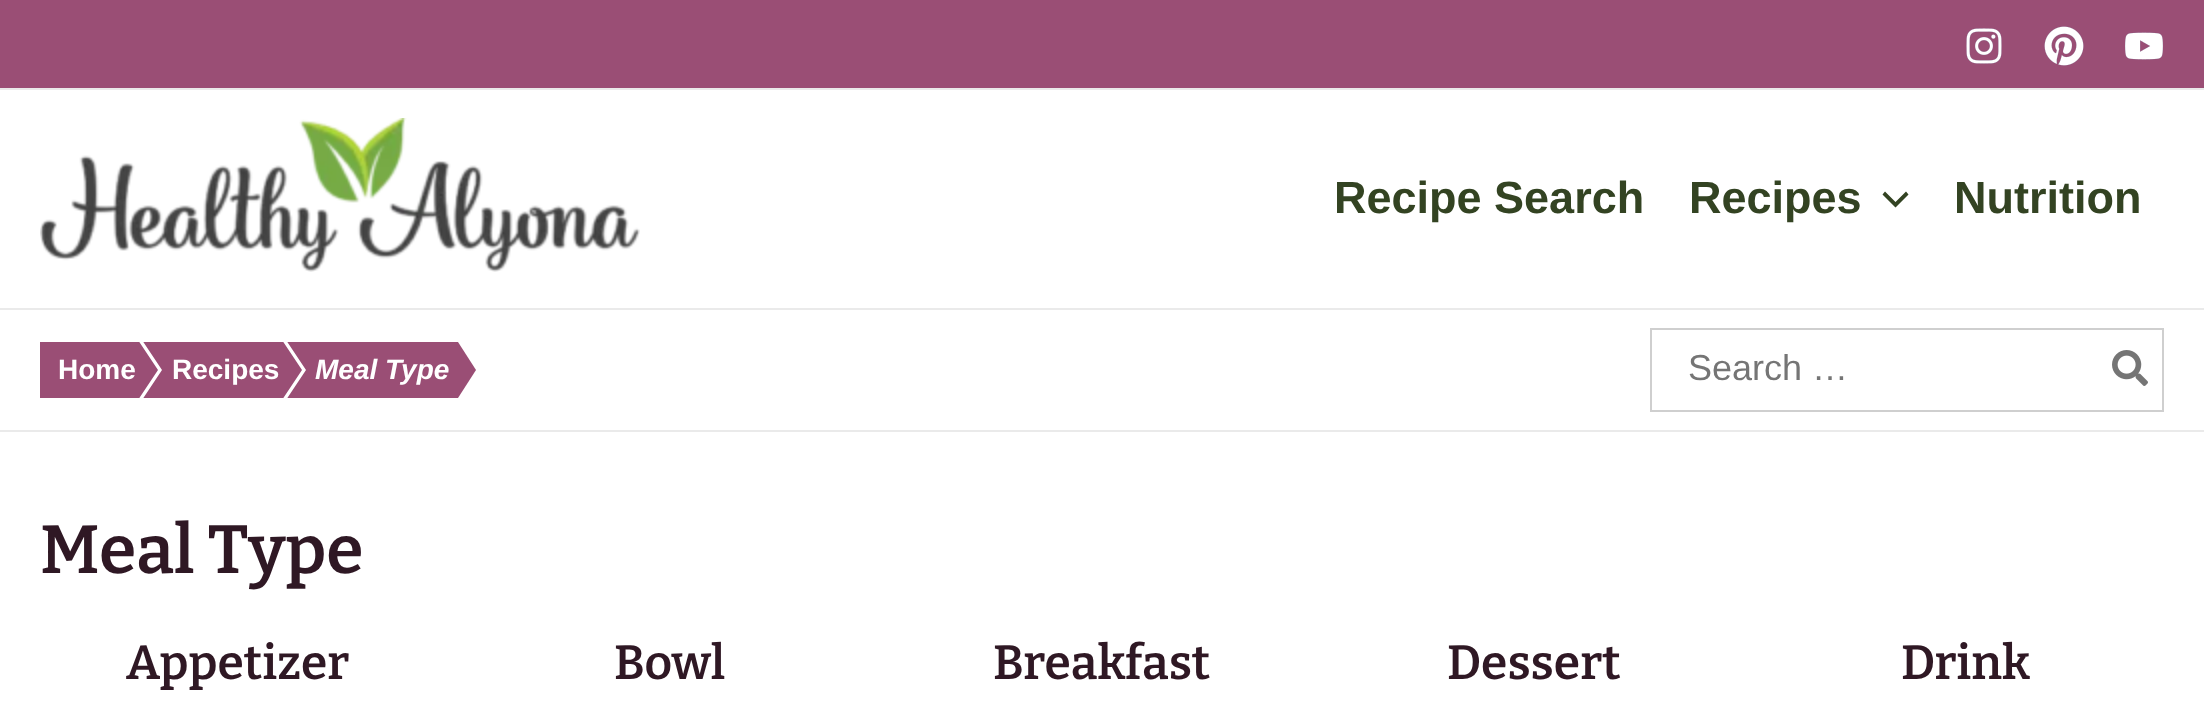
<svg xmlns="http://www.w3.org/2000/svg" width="2204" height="716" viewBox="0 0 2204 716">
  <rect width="100%" height="100%" fill="rgb(255,255,255)"/>
  <rect x="0" y="0" width="2204" height="88" fill="rgb(154,78,117)"/>
  <rect x="0" y="88" width="2204" height="2" fill="rgb(234,234,234)"/>
  <image x="1966" y="28" width="36" height="36" href="pic1.png"/>
  <image x="2044" y="26" width="40" height="40" href="pic2.png"/>
  <image x="2125" y="32" width="38" height="28" href="pic3.png"/>
  <rect x="0" y="308" width="2204" height="2" fill="rgb(234,234,234)"/>
  <image x="40" y="118" width="600" height="154" href="pic4.png"/>
  <g font-family="Liberation Sans" font-size="45" font-weight="bold" fill="rgb(51,67,34)">
    <text x="1334" y="213">Recipe Search</text>
    <text x="1689" y="213">Recipes</text>
  </g>
  <path d="M1882.5 194.5L1895.5 207.5L1908.5 194.5L1906 191.5L1895.5 202L1885 191.5Z" fill="rgb(51,67,34)"/>
  <text x="1954" y="213" font-family="Liberation Sans" font-size="45" font-weight="bold" fill="rgb(51,67,34)">Nutrition</text>
  <rect x="0" y="430" width="2204" height="2" fill="rgb(234,234,234)"/>
  <rect x="40" y="342" width="418" height="56" fill="rgb(154,78,117)"/>
  <text x="58" y="379" font-family="Liberation Sans" font-size="28" font-weight="bold" fill="rgb(255,255,255)">Home</text>
  <image x="139" y="342" width="23" height="56" href="pic5.png"/>
  <text x="172" y="379" font-family="Liberation Sans" font-size="28" font-weight="bold" fill="rgb(255,255,255)">Recipes</text>
  <image x="283" y="342" width="23" height="56" href="pic5.png"/>
  <text x="315" y="379" font-family="Liberation Sans" font-size="28" font-weight="bold" font-style="italic" fill="rgb(255,255,255)">Meal Type</text>
  <path d="M458 398V342L476 370Z" fill="rgb(154,78,117)"/>
  <rect x="1651" y="329" width="512" height="82" fill="none" stroke="rgb(207,207,207)" stroke-width="2"/>
  <text x="1688" y="380" font-family="Liberation Sans" font-size="36" fill="rgb(117,117,117)">Search …</text>
  <image x="2112" y="350" width="36" height="36" href="pic6.png"/>
  <text x="40" y="573" font-family="Bitter" font-size="68" font-weight="600" fill="rgb(47,24,36)">Meal Type</text>
  <g font-family="Bitter" font-size="48" font-weight="600" fill="rgb(47,24,36)">
    <text x="126" y="679">Appetizer</text>
    <text x="614" y="679">Bowl</text>
    <text x="993" y="679">Breakfast</text>
    <text x="1447" y="679">Dessert</text>
    <text x="1901" y="679">Drink</text>
  </g>
</svg>
